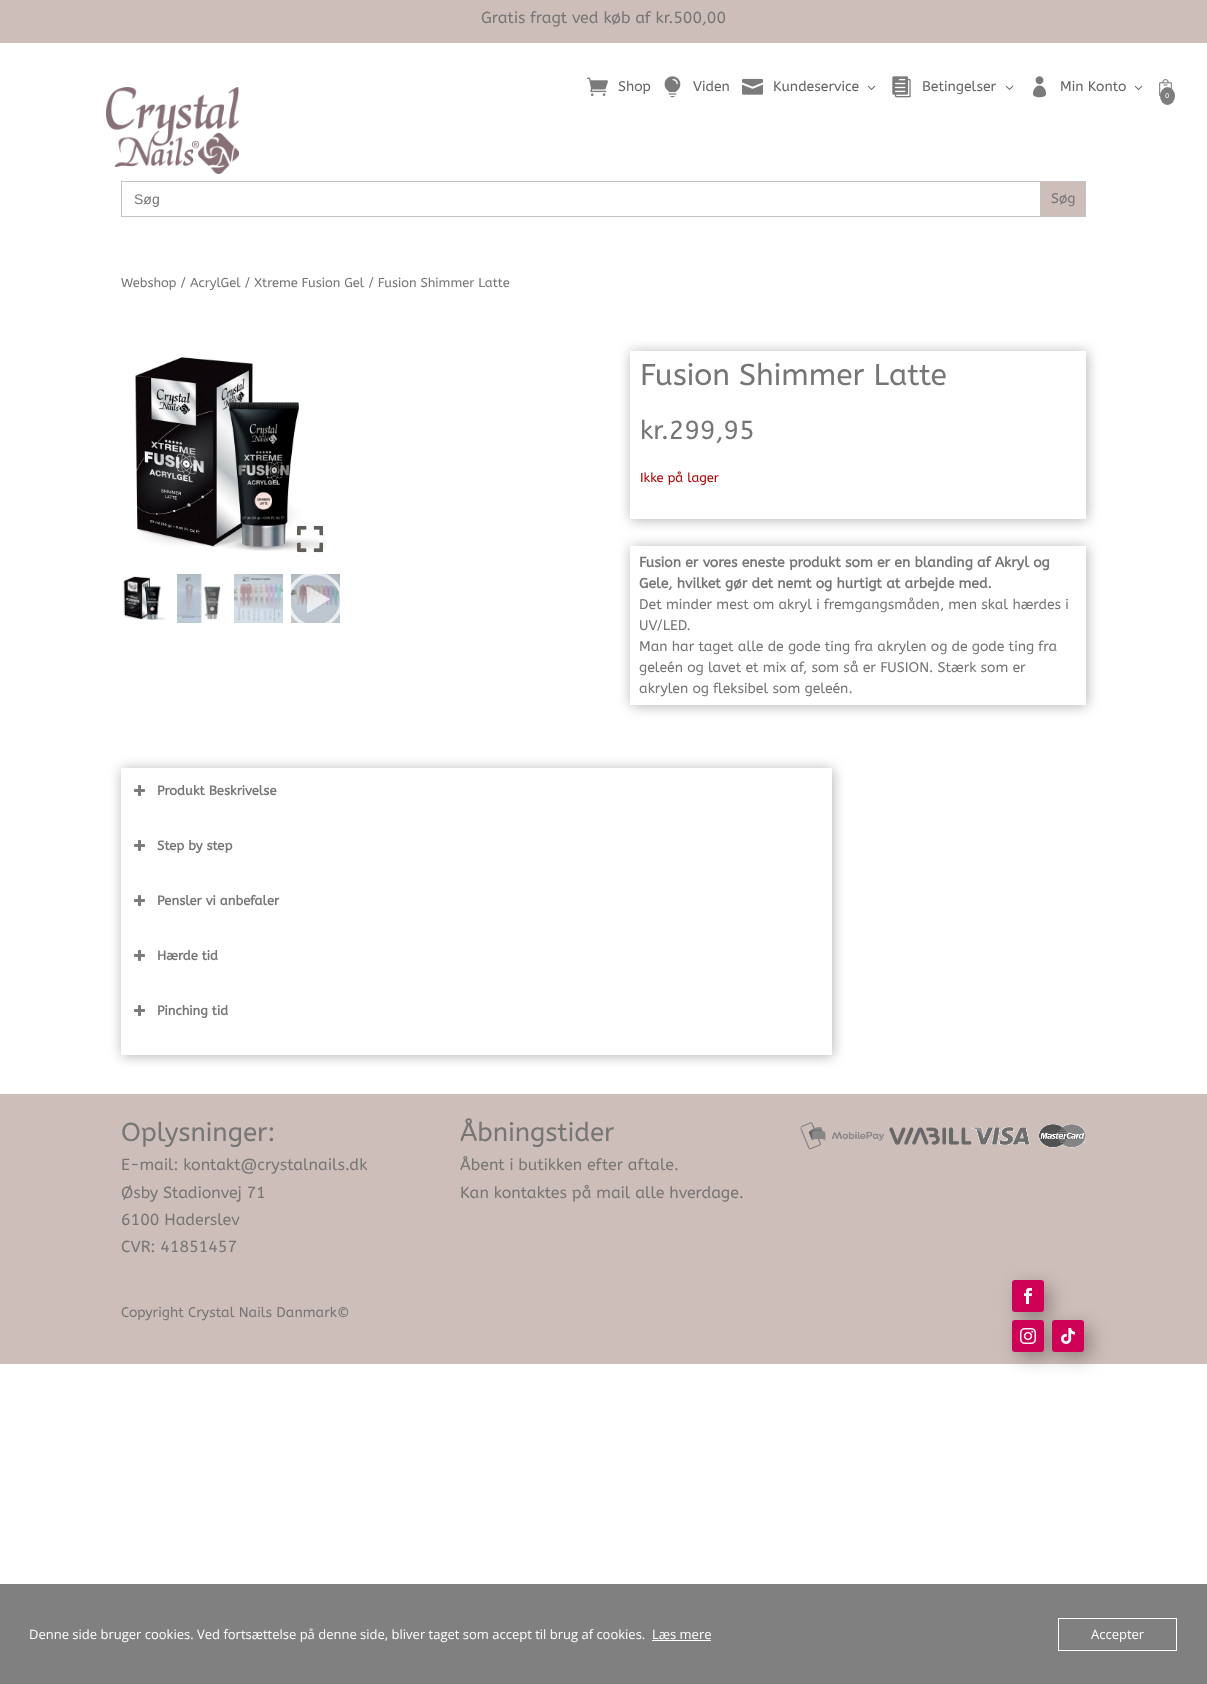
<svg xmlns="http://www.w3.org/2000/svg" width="1207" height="1684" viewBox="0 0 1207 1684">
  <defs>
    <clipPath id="clip1"><rect x="285" y="569" width="55" height="60"/></clipPath>
    <clipPath id="clip2"><path d="M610 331H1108V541H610ZM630 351H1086V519H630Z" clip-rule="evenodd"/></clipPath>
    <clipPath id="clip3"><path d="M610 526H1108V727H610ZM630 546H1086V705H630Z" clip-rule="evenodd"/></clipPath>
    <clipPath id="clip4"><path d="M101 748H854V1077H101ZM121 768H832V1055H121Z" clip-rule="evenodd"/></clipPath>
  </defs>
  <rect width="100%" height="100%" fill="rgb(255,255,255)"/>
  <rect x="0" y="0" width="1207" height="43" fill="rgb(206,190,185)"/>
  <text x="481" y="23" font-family="ABeeZee" font-size="16" fill="rgb(118,118,118)">Gratis fragt ved køb af kr.500,00</text>
  <image x="106" y="87" width="133" height="87" href="pic1.png"/>
  <image x="587" y="77" width="21" height="19" href="pic2.png"/>
  <text x="618" y="91" font-family="ABeeZee" font-size="14" fill="rgb(102,102,102)">Shop</text>
  <image x="664" y="76" width="17" height="22" href="pic3.png"/>
  <text x="693" y="91" font-family="ABeeZee" font-size="14" fill="rgb(102,102,102)">Viden</text>
  <image x="742" y="78" width="21" height="17" href="pic4.png"/>
  <text x="773" y="91" font-family="ABeeZee" font-size="14" fill="rgb(102,102,102)">Kundeservice</text>
  <image x="867" y="85" width="9" height="5" href="pic5.png"/>
  <image x="892" y="76" width="19" height="22" href="pic6.png"/>
  <text x="922" y="91" font-family="ABeeZee" font-size="14" fill="rgb(102,102,102)">Betingelser</text>
  <image x="1005" y="85" width="9" height="5" href="pic5.png"/>
  <image x="1032" y="76" width="15" height="22" href="pic7.png"/>
  <text x="1060" y="91" font-family="ABeeZee" font-size="14" fill="rgb(102,102,102)">Min Konto</text>
  <image x="1134" y="85" width="9" height="5" href="pic5.png"/>
  <image x="1159" y="79" width="13" height="18" href="pic8.png"/>
  <ellipse cx="1167.5" cy="96" rx="7.5" ry="9" fill="rgb(125,125,125)"/>
  <text x="1165" y="98" font-family="ABeeZee" font-size="7" fill="rgb(255,255,255)">0</text>
  <rect x="121.5" y="181.5" width="964" height="35" fill="none" stroke="rgb(196,196,196)"/>
  <text x="134" y="204" font-family="Liberation Sans" font-size="14" fill="rgb(118,118,118)">Søg</text>
  <rect x="1040.5" y="181.5" width="45" height="35" fill="rgb(206,190,185)" stroke="rgb(196,196,196)"/>
  <text x="1051" y="203" font-family="ABeeZee" font-size="14" fill="rgb(118,118,118)">Søg</text>
  <text x="121" y="287" font-family="ABeeZee" font-size="12.9" fill="rgb(118,118,118)">Webshop / AcrylGel / Xtreme Fusion Gel / Fusion Shimmer Latte</text>
  <image x="135" y="357" width="191" height="194" href="pic9.png"/>
  <image x="297" y="525" width="26" height="28" href="pic10.png"/>
  <image x="123" y="576" width="43" height="45" href="pic11.png"/>
  <image x="177" y="574" width="44" height="49" href="pic12.png"/>
  <image x="234" y="574" width="49" height="49" href="pic13.png"/>
  <image x="291" y="574" width="49" height="49" href="pic14.png"/>
  <path d="M329.5 598.5C330 599 330 599.5 329.5 599.5L315 608.5C314 609 307.5 613.5 307 612.5L306.5 587C307 585 309 587 311.5 588.5Z" fill="rgba(255,255,255,0.7)"/>
  <g clip-path="url(#clip1)">
    <path d="M288.5 600C288.5 585.5 300.5 573.5 315 573.5C329.5 573.5 341.5 585.5 341.5 600C341.5 614.5 329.5 626.5 315 626.5C300.5 626.5 288.5 614.5 288.5 600Z" fill="none" stroke="rgba(255,255,255,0.7)" stroke-width="3.5"/>
  </g>
  <g clip-path="url(#clip2)">
    <rect x="631" y="352" width="456" height="168" fill="rgba(0,0,0,0.3)" filter="blur(6.5px)"/>
  </g>
  <text x="640" y="385" font-family="ABeeZee" font-size="30" fill="rgb(118,118,118)">Fusion Shimmer Latte</text>
  <text x="640" y="439" font-family="ABeeZee" font-size="26" fill="rgb(118,118,118)">kr.299,95</text>
  <text x="640" y="482" font-family="ABeeZee" font-size="12.9" fill="rgb(170,0,0)">Ikke på lager</text>
  <g clip-path="url(#clip3)">
    <rect x="631" y="547" width="456" height="159" fill="rgba(0,0,0,0.3)" filter="blur(6.5px)"/>
  </g>
  <g font-family="ABeeZee" font-size="14" font-weight="bold" fill="rgb(118,118,118)">
    <text>
      <tspan x="639" y="567">Fusion er vores eneste produkt som er en blanding af Akryl og</tspan>
      <tspan x="639" y="588">Gele, hvilket gør det nemt og hurtigt at arbejde med.</tspan>
    </text>
  </g>
  <g font-family="ABeeZee" font-size="14" fill="rgb(118,118,118)">
    <text>
      <tspan x="639" y="609">Det minder mest om akryl i fremgangsmåden, men skal hærdes i</tspan>
      <tspan x="639" y="630">UV/LED.</tspan>
      <tspan x="639" y="651">Man har taget alle de gode ting fra akrylen og de gode ting fra</tspan>
      <tspan x="639" y="672">geleén og lavet et mix af, som så er FUSION. Stærk som er</tspan>
      <tspan x="639" y="693">akrylen og fleksibel som geleén.</tspan>
    </text>
  </g>
  <g clip-path="url(#clip4)">
    <rect x="122" y="769" width="711" height="287" fill="rgba(0,0,0,0.3)" filter="blur(6.5px)"/>
  </g>
  <image x="134" y="785" width="11" height="11" href="pic15.png"/>
  <text x="157" y="795" font-family="ABeeZee" font-size="13" font-weight="bold" fill="rgb(118,118,118)">Produkt Beskrivelse</text>
  <image x="134" y="840" width="11" height="11" href="pic15.png"/>
  <text x="157" y="850" font-family="ABeeZee" font-size="13" font-weight="bold" fill="rgb(118,118,118)">Step by step</text>
  <image x="134" y="895" width="11" height="11" href="pic15.png"/>
  <text x="157" y="905" font-family="ABeeZee" font-size="13" font-weight="bold" fill="rgb(118,118,118)">Pensler vi anbefaler</text>
  <image x="134" y="950" width="11" height="11" href="pic15.png"/>
  <text x="157" y="960" font-family="ABeeZee" font-size="13" font-weight="bold" fill="rgb(118,118,118)">Hærde tid</text>
  <image x="134" y="1005" width="11" height="11" href="pic15.png"/>
  <text x="157" y="1015" font-family="ABeeZee" font-size="13" font-weight="bold" fill="rgb(118,118,118)">Pinching tid</text>
  <rect x="0" y="1094" width="1207" height="270" fill="rgb(206,190,185)"/>
  <text x="121" y="1141" font-family="ABeeZee" font-size="26" fill="rgb(118,118,118)">Oplysninger:</text>
  <g font-family="ABeeZee" font-size="16" fill="rgb(118,118,118)">
    <text>
      <tspan x="121" y="1170">E-mail: kontakt@crystalnails.dk</tspan>
      <tspan x="121" y="1198">Øsby Stadionvej 71</tspan>
      <tspan x="121" y="1225">6100 Haderslev</tspan>
      <tspan x="121" y="1252">CVR: 41851457</tspan>
    </text>
  </g>
  <text x="460" y="1141" font-family="ABeeZee" font-size="26" fill="rgb(118,118,118)">Åbningstider</text>
  <g font-family="ABeeZee" font-size="16" fill="rgb(118,118,118)">
    <text>
      <tspan x="460" y="1170">Åbent i butikken efter aftale.</tspan>
      <tspan x="460" y="1198">Kan kontaktes på mail alle hverdage.</tspan>
    </text>
  </g>
  <image x="800" y="1122" width="286" height="28" href="pic16.png"/>
  <text x="121" y="1317" font-family="ABeeZee" font-size="14" fill="rgb(118,118,118)">Copyright Crystal Nails Danmark©</text>
  <rect x="1018" y="1286" width="32" height="32" rx="3" fill="rgba(0,0,0,0.3)" filter="blur(9px)"/>
  <rect x="1012" y="1280" width="32" height="32" rx="3" fill="rgb(207,1,86)"/>
  <rect x="1018" y="1326" width="32" height="32" rx="3" fill="rgba(0,0,0,0.3)" filter="blur(9px)"/>
  <rect x="1012" y="1320" width="32" height="32" rx="3" fill="rgb(207,1,86)"/>
  <rect x="1058" y="1326" width="32" height="32" rx="3" fill="rgba(0,0,0,0.3)" filter="blur(9px)"/>
  <image x="1024" y="1288" width="8" height="16" href="pic17.png"/>
  <image x="1020" y="1328" width="16" height="16" href="pic18.png"/>
  <rect x="1052" y="1320" width="32" height="32" rx="3" fill="rgb(207,1,86)"/>
  <image x="1061" y="1328" width="14" height="16" href="pic19.png"/>
  <rect x="0" y="1584" width="1207" height="100" fill="rgb(128,128,128)"/>
  <g font-family="Open Sans" font-size="13" fill="rgb(255,255,255)">
    <text x="29" y="1639">Denne side bruger cookies. Ved fortsættelse på denne side, bliver taget som accept til brug af cookies.</text>
    <text x="652" y="1639">Læs mere</text>
  </g>
  <rect x="652" y="1640" width="59" height="1" fill="rgb(255,255,255)"/>
  <rect x="1058.5" y="1618.5" width="118" height="32" fill="none" stroke="rgb(255,255,255)"/>
  <text x="1091" y="1639" font-family="Open Sans" font-size="13" fill="rgb(255,255,255)">Accepter</text>
</svg>
